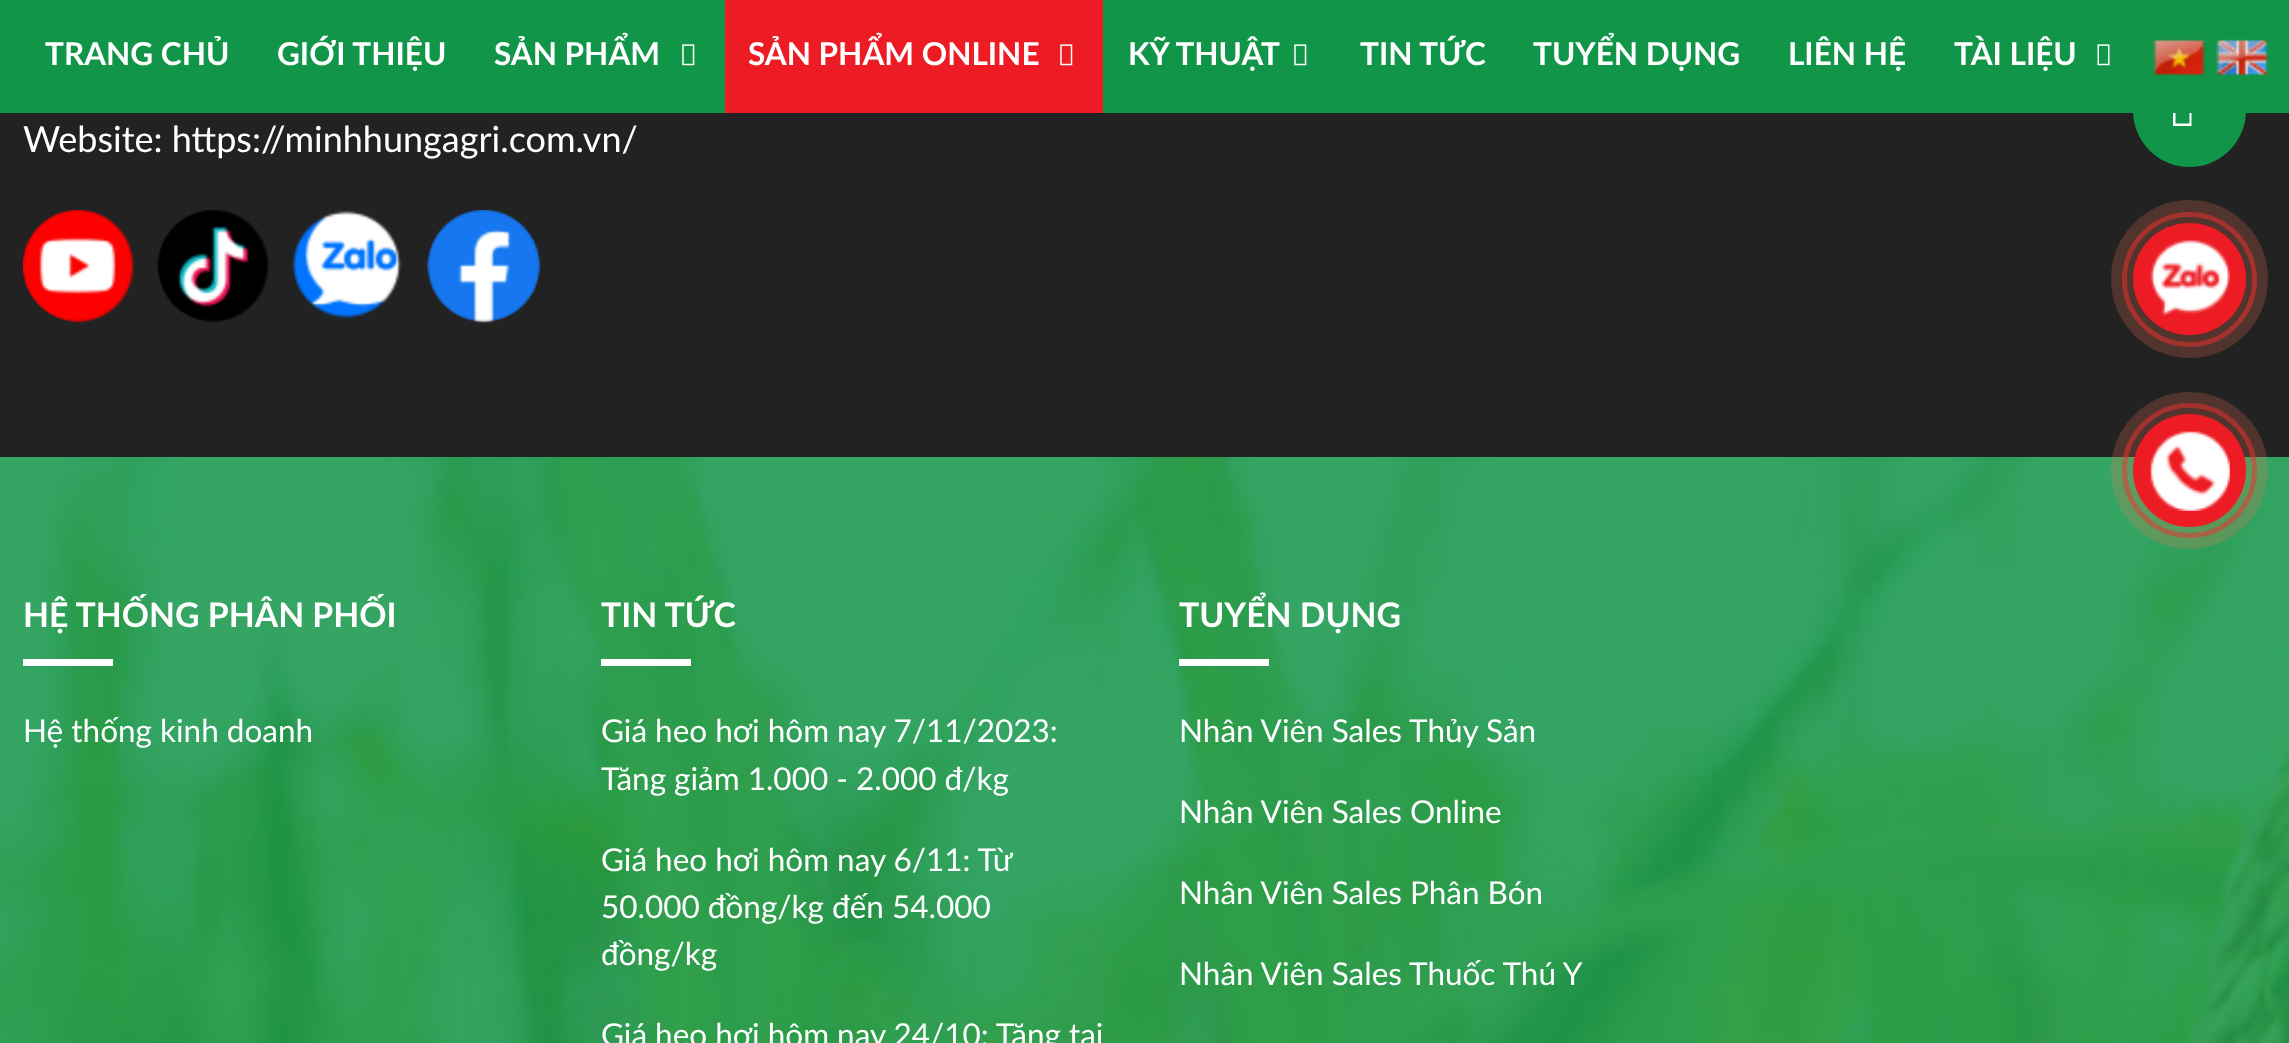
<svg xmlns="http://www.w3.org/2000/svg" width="2289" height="1043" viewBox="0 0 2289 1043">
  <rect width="100%" height="100%" fill="rgb(34,34,34)"/>
  <circle cx="2189.5" cy="110.5" r="56.5" fill="rgb(17,149,72)"/>
  <path d="M2173 126V94H2191.5V126ZM2175.5 123.5H2189.5V96H2175.5Z" fill="rgb(255,255,255)"/>
  <rect x="0" y="0" width="2289" height="113" fill="rgb(17,149,72)"/>
  <g font-family="Lato" font-size="31.5" font-weight="bold" fill="rgb(255,255,255)">
    <text x="45" y="65">TRANG CHỦ</text>
    <text x="277" y="65">GIỚI THIỆU</text>
    <text x="494" y="65">SẢN PHẨM</text>
  </g>
  <image x="682" y="44" width="13" height="22" href="pic1.png"/>
  <rect x="725" y="0" width="378" height="113" fill="rgb(237,28,36)"/>
  <text x="748" y="65" font-family="Lato" font-size="31.5" font-weight="bold" fill="rgb(255,255,255)">SẢN PHẨM ONLINE</text>
  <image x="1060" y="44" width="13" height="22" href="pic2.png"/>
  <text x="1128" y="65" font-family="Lato" font-size="31.5" font-weight="bold" fill="rgb(255,255,255)">KỸ THUẬT</text>
  <image x="1294" y="44" width="13" height="22" href="pic1.png"/>
  <g font-family="Lato" font-size="31.5" font-weight="bold" fill="rgb(255,255,255)">
    <text x="1360" y="65">TIN TỨC</text>
    <text x="1533" y="65">TUYỂN DỤNG</text>
    <text x="1788" y="65">LIÊN HỆ</text>
    <text x="1954" y="65">TÀI LIỆU</text>
  </g>
  <image x="2097" y="44" width="13" height="22" href="pic3.png"/>
  <image x="2153" y="39" width="53" height="37" href="pic4.png"/>
  <image x="2216" y="39" width="53" height="37" href="pic5.png"/>
  <text x="23" y="152" font-family="Lato" font-size="36" fill="rgb(255,255,255)">Website: https://minhhungagri.com.vn/</text>
  <image x="23" y="210" width="111" height="113" href="pic6.png"/>
  <image x="157" y="210" width="112" height="113" href="pic7.png"/>
  <image x="292" y="210" width="110" height="109" href="pic8.png"/>
  <image x="427" y="210" width="114" height="113" href="pic9.png"/>
  <image x="0" y="457" width="2289" height="586" href="pic10.png"/>
  <text x="23" y="627" font-family="Lato" font-size="33.75" font-weight="bold" fill="rgb(255,255,255)">HỆ THỐNG PHÂN PHỐI</text>
  <rect x="23" y="659" width="90" height="7" fill="rgb(255,255,255)"/>
  <text x="23" y="742" font-family="Lato" font-size="31.5" fill="rgb(255,255,255)">Hệ thống kinh doanh</text>
  <text x="601" y="627" font-family="Lato" font-size="33.75" font-weight="bold" fill="rgb(255,255,255)">TIN TỨC</text>
  <rect x="601" y="659" width="90" height="7" fill="rgb(255,255,255)"/>
  <g font-family="Lato" font-size="31.5" fill="rgb(255,255,255)">
    <text>
      <tspan x="601" y="742">Giá heo hơi hôm nay 7/11/2023:</tspan>
      <tspan x="601" y="790">Tăng giảm 1.000 - 2.000 đ/kg</tspan>
    </text>
    <text>
      <tspan x="601" y="871">Giá heo hơi hôm nay 6/11: Từ</tspan>
      <tspan x="601" y="918">50.000 đồng/kg đến 54.000</tspan>
      <tspan x="601" y="965">đồng/kg</tspan>
    </text>
    <text x="601" y="1046">Giá heo hơi hôm nay 24/10: Tăng tại</text>
  </g>
  <text x="1179" y="627" font-family="Lato" font-size="33.75" font-weight="bold" fill="rgb(255,255,255)">TUYỂN DỤNG</text>
  <rect x="1179" y="659" width="90" height="7" fill="rgb(255,255,255)"/>
  <g font-family="Lato" font-size="31.5" fill="rgb(255,255,255)">
    <text x="1179" y="742">Nhân Viên Sales Thủy Sản</text>
    <text x="1179" y="823">Nhân Viên Sales Online</text>
    <text x="1179" y="904">Nhân Viên Sales Phân Bón</text>
    <text x="1179" y="985">Nhân Viên Sales Thuốc Thú Y</text>
  </g>
  <circle cx="2189.5" cy="279.5" r="65" fill="none" stroke="rgb(136,31,35)" stroke-width="5"/>
  <rect x="2111" y="200" width="157" height="158" rx="78.5" fill="rgba(252,117,86,0.22)"/>
  <rect x="2133" y="223" width="113" height="112" rx="56" fill="rgb(237,28,36)"/>
  <image x="2150" y="240" width="80" height="76" href="pic11.png"/>
  <circle cx="2189.5" cy="470.5" r="65" fill="none" stroke="rgba(237,28,36,0.5)" stroke-width="5"/>
  <circle cx="2189.5" cy="470.5" r="78.5" fill="rgba(252,117,86,0.22)"/>
  <circle cx="2189.5" cy="470.5" r="56.5" fill="rgb(237,28,36)"/>
  <image x="2150" y="431" width="80" height="80" href="pic12.png"/>
</svg>
